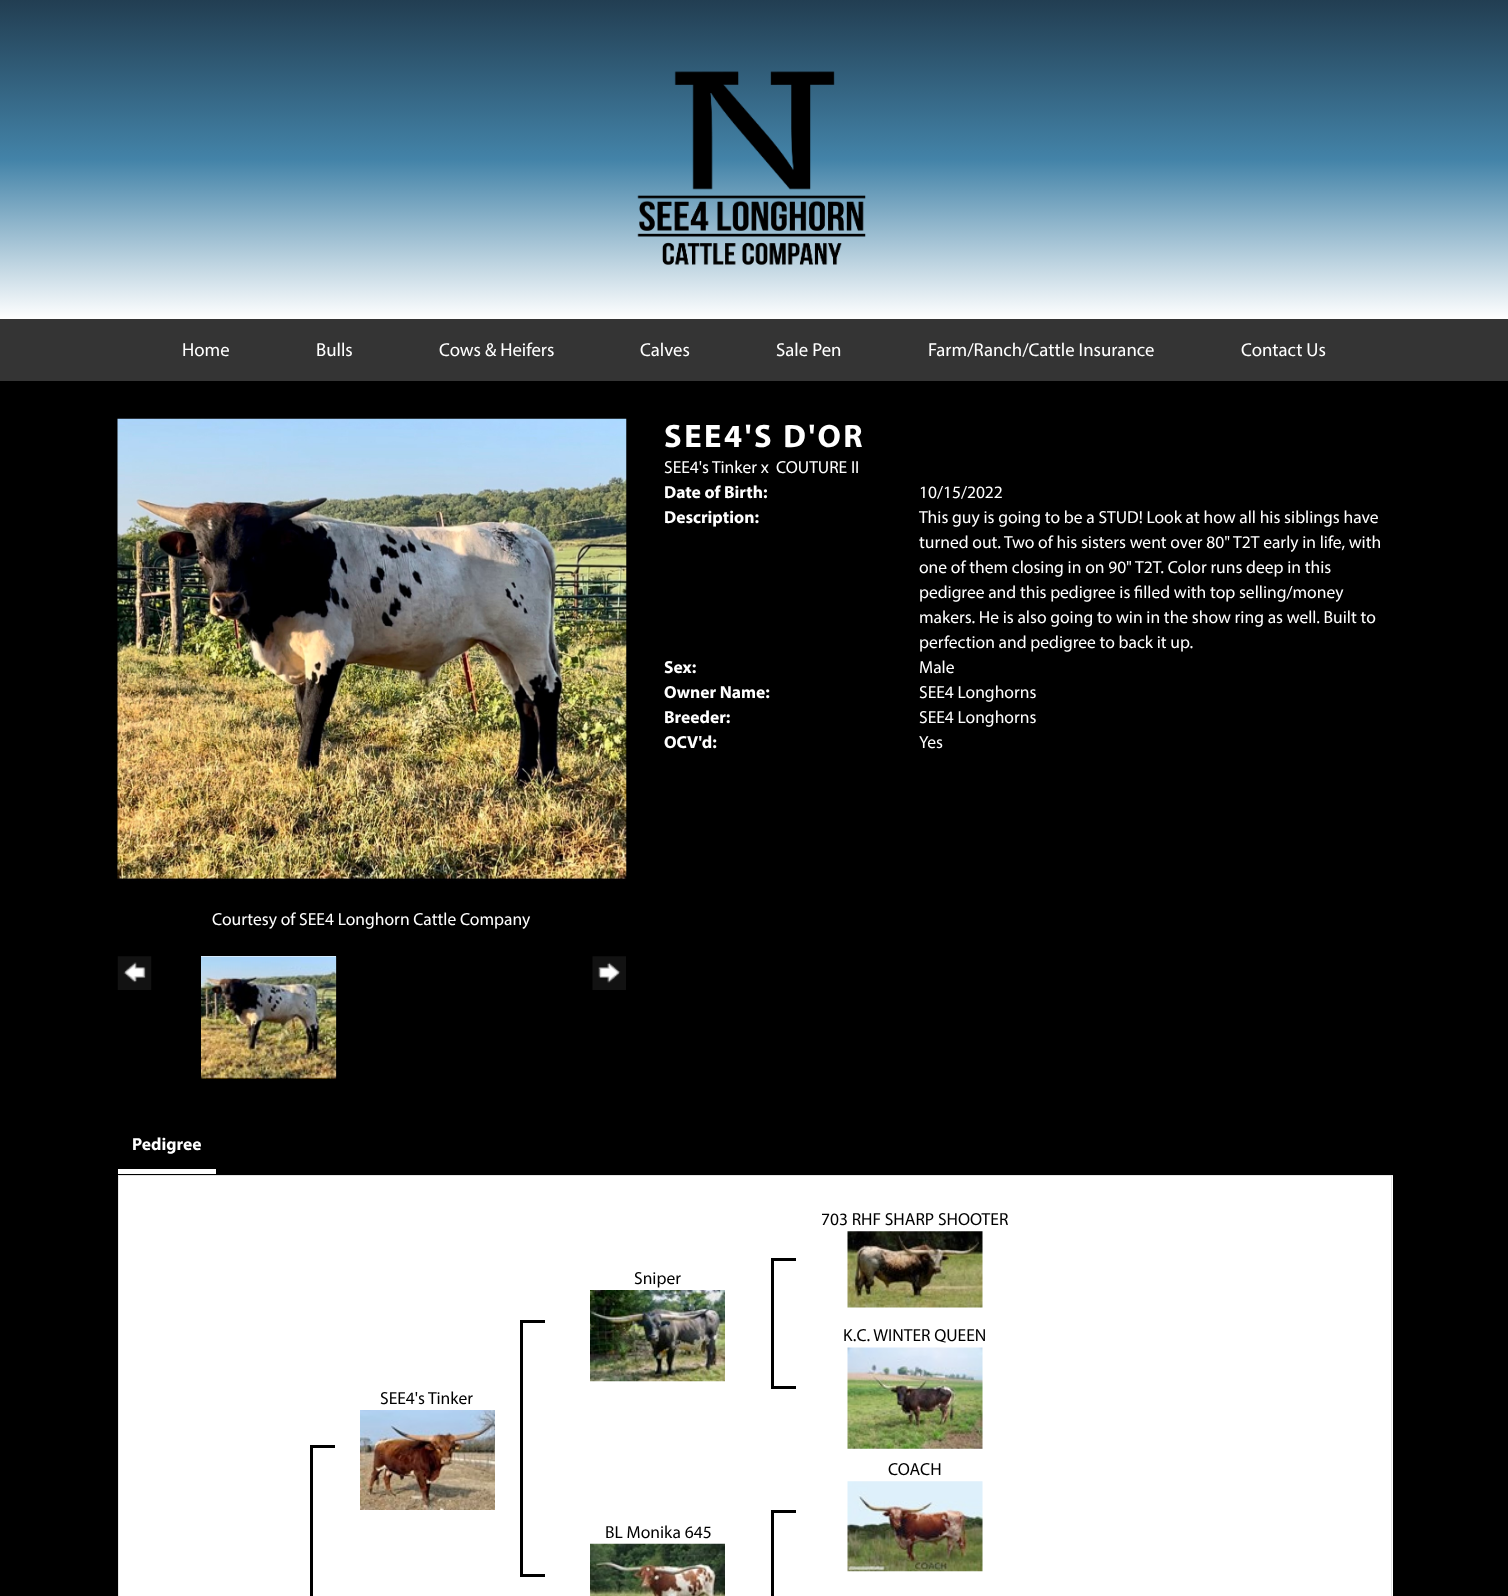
<svg xmlns="http://www.w3.org/2000/svg" width="1508" height="1596" viewBox="0 0 1508 1596">
  <defs>
    <linearGradient id="g1" gradientUnits="userSpaceOnUse" x1="754" y1="0" x2="754" y2="319"><stop offset="0" stop-color="rgb(34,62,82)"/><stop offset="0.5" stop-color="rgb(67,131,168)"/><stop offset="1" stop-color="rgb(255,255,255)"/></linearGradient>
  </defs>
  <rect width="100%" height="100%" fill="rgb(0,0,0)"/>
  <rect x="0" y="0" width="1508" height="319" fill="url(#g1)"/>
  <image x="637" y="71" width="229" height="194" href="pic1.png"/>
  <rect x="0" y="319" width="1508" height="62" fill="rgb(52,52,52)"/>
  <g font-family="Myriad" font-size="18.75" fill="rgb(255,255,255)">
    <text x="182" y="356">Home</text>
    <text x="316" y="356">Bulls</text>
    <text x="439" y="356">Cows &amp; Heifers</text>
    <text x="640" y="356">Calves</text>
    <text x="776" y="356">Sale Pen</text>
    <text x="928" y="356">Farm/Ranch/Cattle Insurance</text>
    <text x="1241" y="356">Contact Us</text>
  </g>
  <text x="664" y="447" font-family="Myriad" font-size="32.5" font-weight="bold" letter-spacing="2.6" fill="rgb(255,255,255)">SEE4'S D'OR</text>
  <g font-family="Myriad" font-size="17.5" fill="rgb(255,255,255)">
    <text x="664" y="473">SEE4's Tinker x</text>
    <text x="776" y="473">COUTURE II</text>
  </g>
  <text x="664" y="498" font-family="Myriad" font-size="17.5" font-weight="bold" fill="rgb(255,255,255)">Date of Birth:</text>
  <text x="919" y="498" font-family="Myriad" font-size="17.5" fill="rgb(255,255,255)">10/15/2022</text>
  <text x="664" y="523" font-family="Myriad" font-size="17.5" font-weight="bold" fill="rgb(255,255,255)">Description:</text>
  <g font-family="Myriad" font-size="17.5" fill="rgb(255,255,255)">
    <text>
      <tspan x="919" y="523">This guy is going to be a STUD! Look at how all his siblings have</tspan>
      <tspan x="919" y="548">turned out.</tspan>
    </text>
    <text x="1004" y="548">Two of his sisters went over 80" T2T early in life, with</text>
    <text>
      <tspan x="919" y="573">one of them closing in on 90" T2T. Color runs deep in this</tspan>
      <tspan x="919" y="598">pedigree and this pedigree is filled with top selling/money</tspan>
      <tspan x="919" y="623">makers. He is also going to win in the show ring as well. Built to</tspan>
      <tspan x="919" y="648">perfection and pedigree to back it up.</tspan>
    </text>
  </g>
  <text x="664" y="673" font-family="Myriad" font-size="17.5" font-weight="bold" fill="rgb(255,255,255)">Sex:</text>
  <text x="919" y="673" font-family="Myriad" font-size="17.5" fill="rgb(255,255,255)">Male</text>
  <text x="664" y="698" font-family="Myriad" font-size="17.5" font-weight="bold" fill="rgb(255,255,255)">Owner Name:</text>
  <text x="919" y="698" font-family="Myriad" font-size="17.5" fill="rgb(255,255,255)">SEE4 Longhorns</text>
  <text x="664" y="723" font-family="Myriad" font-size="17.5" font-weight="bold" fill="rgb(255,255,255)">Breeder:</text>
  <text x="919" y="723" font-family="Myriad" font-size="17.5" fill="rgb(255,255,255)">SEE4 Longhorns</text>
  <text x="664" y="748" font-family="Myriad" font-size="17.5" font-weight="bold" fill="rgb(255,255,255)">OCV'd:</text>
  <text x="919" y="748" font-family="Myriad" font-size="17.5" fill="rgb(255,255,255)">Yes</text>
  <image x="117" y="418" width="510" height="463" href="pic2.png"/>
  <text x="212" y="925" font-family="Myriad" font-size="17.5" fill="rgb(255,255,255)">Courtesy of SEE4 Longhorn Cattle Company</text>
  <image x="117" y="956" width="35" height="34" href="pic3.png"/>
  <rect x="201" y="956" width="135" height="123" fill="rgb(255,255,255)"/>
  <image x="201" y="956" width="136" height="123" href="pic4.png"/>
  <image x="592" y="956" width="34" height="34" href="pic5.png"/>
  <rect x="118" y="1175" width="1275" height="1" fill="rgb(229,229,229)"/>
  <rect x="118" y="1169" width="98" height="5" fill="rgb(255,255,255)"/>
  <text x="132" y="1150" font-family="Myriad" font-size="17.5" font-weight="bold" fill="rgb(255,255,255)">Pedigree</text>
  <rect x="119" y="1176" width="1274" height="420" fill="rgb(255,255,255)"/>
  <path d="M1392 1176V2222L1391 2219V1176Z" fill="rgb(229,229,229)"/>
  <path d="M118 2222V1176H119V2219Z" fill="rgb(229,229,229)"/>
  <text x="821" y="1225" font-family="Myriad" font-size="17.5" fill="rgb(0,0,0)">703 RHF SHARP SHOOTER</text>
  <image x="847" y="1231" width="136" height="77" href="pic6.png"/>
  <text x="634" y="1284" font-family="Myriad" font-size="17.5" fill="rgb(0,0,0)">Sniper</text>
  <image x="590" y="1290" width="135" height="92" href="pic7.png"/>
  <rect x="771" y="1258" width="25" height="3" fill="rgb(0,0,0)"/>
  <rect x="771" y="1386" width="25" height="3" fill="rgb(0,0,0)"/>
  <rect x="771" y="1258" width="3" height="131" fill="rgb(0,0,0)"/>
  <text x="380" y="1404" font-family="Myriad" font-size="17.5" fill="rgb(0,0,0)">SEE4's Tinker</text>
  <image x="360" y="1410" width="135" height="100" href="pic8.png"/>
  <rect x="520" y="1320" width="25" height="3" fill="rgb(0,0,0)"/>
  <rect x="520" y="1574" width="25" height="3" fill="rgb(0,0,0)"/>
  <rect x="520" y="1320" width="3" height="256" fill="rgb(0,0,0)"/>
  <rect x="310" y="1445" width="25" height="3" fill="rgb(0,0,0)"/>
  <rect x="310" y="1445" width="3" height="151" fill="rgb(0,0,0)"/>
  <text x="843" y="1341" font-family="Myriad" font-size="17.5" fill="rgb(0,0,0)">K.C. WINTER QUEEN</text>
  <image x="847" y="1347" width="136" height="102" href="pic9.png"/>
  <text x="888" y="1475" font-family="Myriad" font-size="17.5" fill="rgb(0,0,0)">COACH</text>
  <image x="847" y="1481" width="136" height="91" href="pic10.png"/>
  <text x="605" y="1538" font-family="Myriad" font-size="17.5" fill="rgb(0,0,0)">BL Monika 645</text>
  <image x="590" y="1543" width="135" height="53" href="pic11.png"/>
  <rect x="771" y="1510" width="25" height="3" fill="rgb(0,0,0)"/>
  <rect x="771" y="1510" width="3" height="86" fill="rgb(0,0,0)"/>
</svg>
